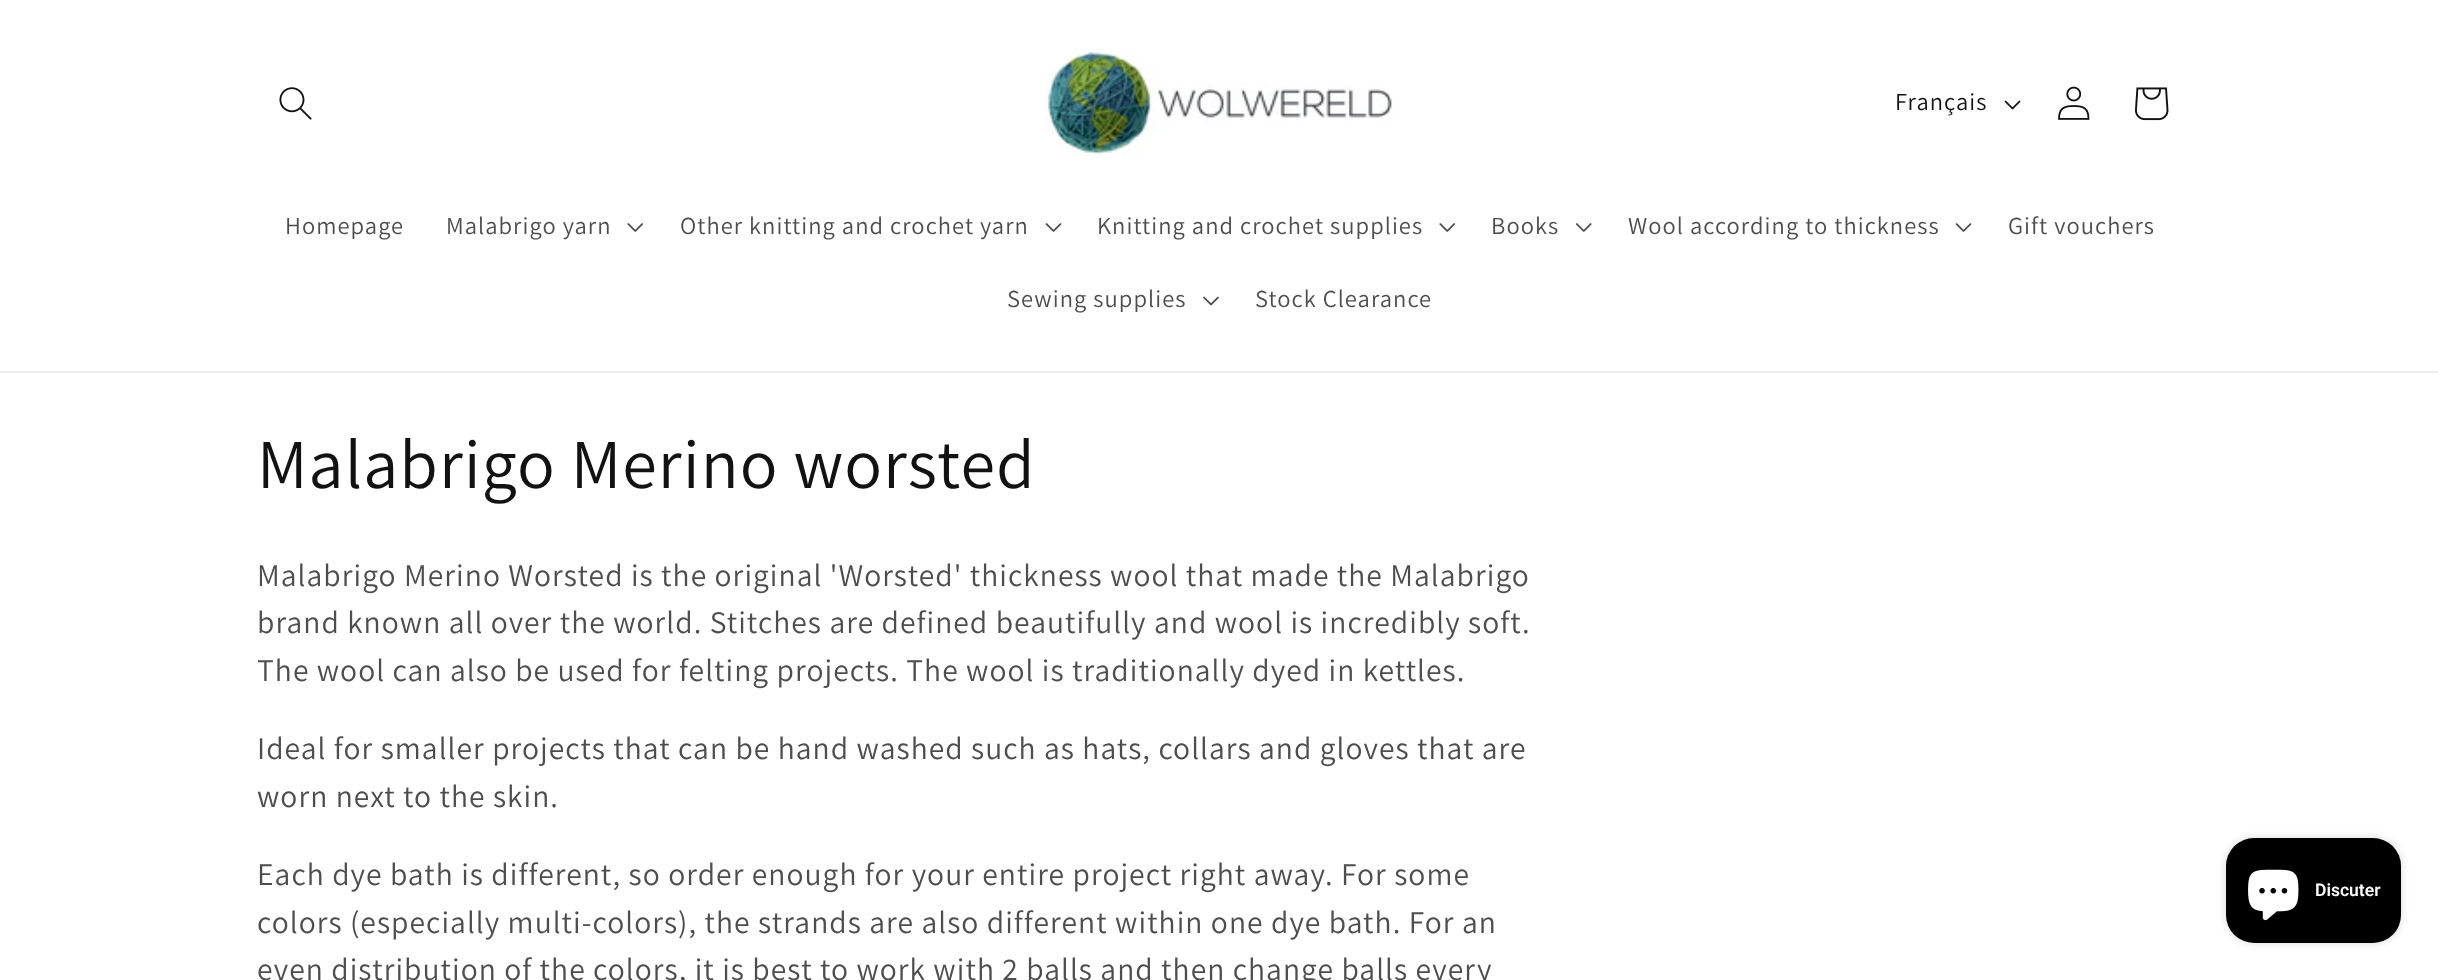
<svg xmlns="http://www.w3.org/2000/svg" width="2438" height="980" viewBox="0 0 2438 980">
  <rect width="100%" height="100%" fill="rgb(255,255,255)"/>
  <rect x="0" y="371" width="2438" height="2" fill="rgb(236,236,236)"/>
  <image x="279" y="87" width="33" height="33" href="pic1.png"/>
  <image x="1045" y="49" width="349" height="109" href="pic2.png"/>
  <text x="1895" y="110" font-family="Assistant" font-size="24.5" letter-spacing="1.05" fill="rgb(18,18,18)">Français</text>
  <image x="2004" y="100" width="17" height="10" href="pic3.png"/>
  <image x="2058" y="86" width="32" height="34" href="pic4.png"/>
  <image x="2135" y="87" width="34" height="34" href="pic5.png"/>
  <g font-family="Assistant" font-size="24.5" letter-spacing="1.05" fill="rgb(77,77,77)">
    <text x="285" y="234">Homepage</text>
    <text x="446" y="234">Malabrigo yarn</text>
  </g>
  <image x="627" y="223" width="16" height="9" href="pic6.png"/>
  <text x="680" y="234" font-family="Assistant" font-size="24.5" letter-spacing="1.05" fill="rgb(77,77,77)">Other knitting and crochet yarn</text>
  <image x="1045" y="223" width="17" height="9" href="pic7.png"/>
  <text x="1097" y="234" font-family="Assistant" font-size="24.5" letter-spacing="1.05" fill="rgb(77,77,77)">Knitting and crochet supplies</text>
  <image x="1439" y="223" width="16" height="9" href="pic6.png"/>
  <text x="1491" y="234" font-family="Assistant" font-size="24.5" letter-spacing="1.05" fill="rgb(77,77,77)">Books</text>
  <image x="1576" y="223" width="16" height="9" href="pic8.png"/>
  <text x="1628" y="234" font-family="Assistant" font-size="24.5" letter-spacing="1.05" fill="rgb(77,77,77)">Wool according to thickness</text>
  <image x="1955" y="223" width="17" height="9" href="pic7.png"/>
  <g font-family="Assistant" font-size="24.5" letter-spacing="1.05" fill="rgb(77,77,77)">
    <text x="2008" y="234">Gift vouchers</text>
    <text x="1007" y="307">Sewing supplies</text>
  </g>
  <image x="1203" y="296" width="16" height="10" href="pic9.png"/>
  <text x="1255" y="307" font-family="Assistant" font-size="24.5" letter-spacing="1.05" fill="rgb(77,77,77)">Stock Clearance</text>
  <text x="257" y="488" font-family="Assistant" font-size="70" letter-spacing="1.05" fill="rgb(18,18,18)">Malabrigo Merino worsted</text>
  <g font-family="Assistant" font-size="31.5" letter-spacing="1.05" fill="rgb(77,77,77)">
    <text>
      <tspan x="257" y="586">Malabrigo Merino Worsted is the original 'Worsted' thickness wool that made the Malabrigo</tspan>
      <tspan x="257" y="633">brand known all over the world. Stitches are defined beautifully and wool is incredibly soft.</tspan>
      <tspan x="257" y="681">The wool can also be used for felting projects. The wool is traditionally dyed in kettles.</tspan>
    </text>
    <text>
      <tspan x="257" y="759">Ideal for smaller projects that can be hand washed such as hats, collars and gloves that are</tspan>
      <tspan x="257" y="807">worn next to the skin.</tspan>
    </text>
    <text>
      <tspan x="257" y="885">Each dye bath is different, so order enough for your entire project right away. For some</tspan>
      <tspan x="257" y="933">colors (especially multi-colors), the strands are also different within one dye bath. For an</tspan>
      <tspan x="257" y="980">even distribution of the colors, it is best to work with 2 balls and then change balls every</tspan>
    </text>
  </g>
  <rect x="2226" y="838" width="175" height="105" rx="28" fill="rgba(0,0,0,0.15)" filter="blur(4.5px)"/>
  <rect x="2226" y="838" width="175" height="105" rx="28" fill="rgb(0,0,0)"/>
  <image x="2248" y="869" width="51" height="52" href="pic10.png"/>
  <text x="2315" y="896" font-family="Roboto" font-size="17.5" font-weight="600" fill="rgb(255,255,255)">Discuter</text>
</svg>
